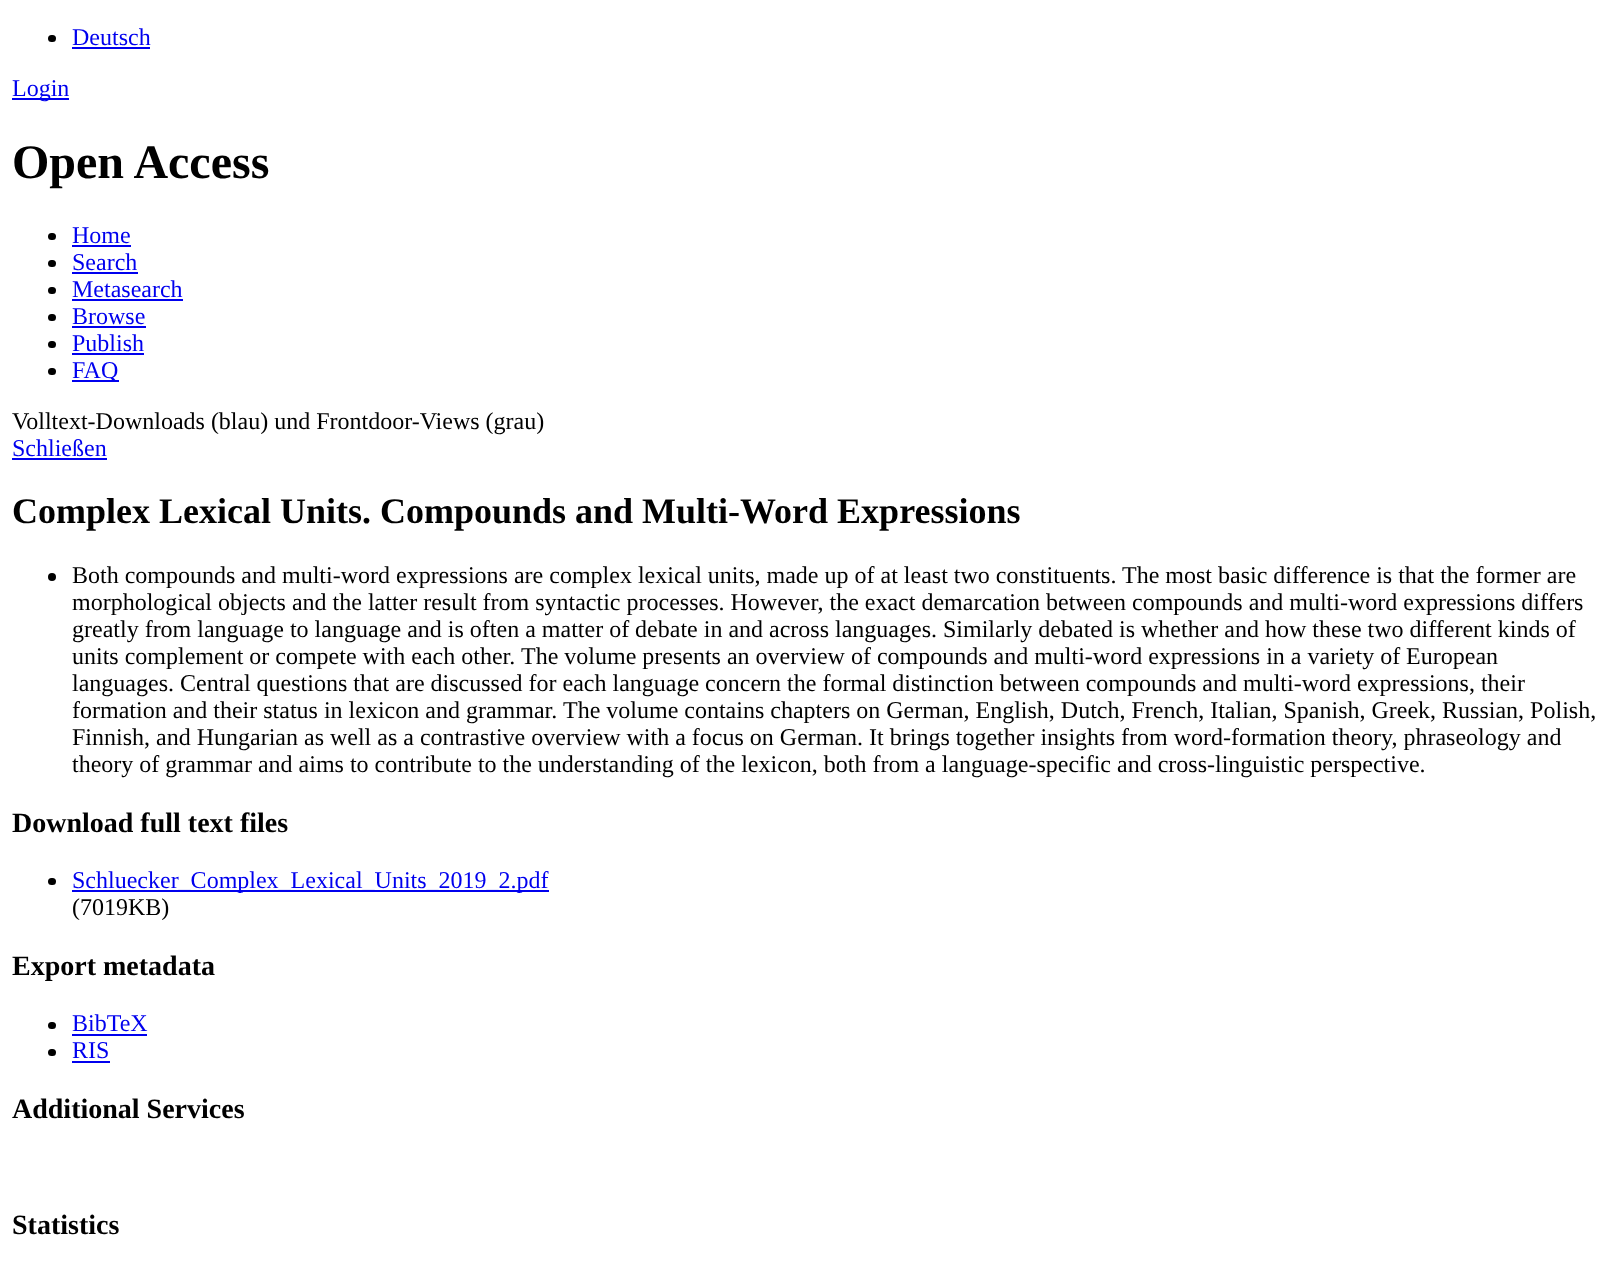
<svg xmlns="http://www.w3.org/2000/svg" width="1611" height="1279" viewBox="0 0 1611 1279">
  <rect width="100%" height="100%" fill="rgb(255,255,255)"/>
  <rect x="48" y="35" width="8" height="7" rx="3.5" fill="rgb(0,0,0)"/>
  <text x="72" y="45" font-family="Liberation Serif" font-size="24" fill="rgb(0,0,238)">Deutsch</text>
  <rect x="72" y="47" width="78" height="2" fill="rgb(0,0,238)"/>
  <rect x="12" y="98" width="57" height="2" fill="rgb(0,0,238)"/>
  <text x="12" y="96" font-family="Liberation Serif" font-size="24" fill="rgb(0,0,238)">Login</text>
  <text x="12" y="178" font-family="Liberation Serif" font-size="48" font-weight="bold" fill="rgb(0,0,0)">Open Access</text>
  <rect x="48" y="233" width="8" height="7" rx="3.5" fill="rgb(0,0,0)"/>
  <text x="72" y="243" font-family="Liberation Serif" font-size="24" fill="rgb(0,0,238)">Home</text>
  <rect x="72" y="245" width="59" height="2" fill="rgb(0,0,238)"/>
  <rect x="48" y="260" width="8" height="7" rx="3.5" fill="rgb(0,0,0)"/>
  <text x="72" y="270" font-family="Liberation Serif" font-size="24" fill="rgb(0,0,238)">Search</text>
  <rect x="72" y="272" width="66" height="2" fill="rgb(0,0,238)"/>
  <rect x="48" y="287" width="8" height="7" rx="3.5" fill="rgb(0,0,0)"/>
  <text x="72" y="297" font-family="Liberation Serif" font-size="24" fill="rgb(0,0,238)">Metasearch</text>
  <rect x="72" y="299" width="111" height="2" fill="rgb(0,0,238)"/>
  <rect x="48" y="314" width="8" height="7" rx="3.5" fill="rgb(0,0,0)"/>
  <text x="72" y="324" font-family="Liberation Serif" font-size="24" fill="rgb(0,0,238)">Browse</text>
  <rect x="72" y="326" width="74" height="2" fill="rgb(0,0,238)"/>
  <rect x="48" y="341" width="8" height="7" rx="3.5" fill="rgb(0,0,0)"/>
  <text x="72" y="351" font-family="Liberation Serif" font-size="24" fill="rgb(0,0,238)">Publish</text>
  <rect x="72" y="353" width="72" height="2" fill="rgb(0,0,238)"/>
  <rect x="48" y="368" width="8" height="7" rx="3.5" fill="rgb(0,0,0)"/>
  <rect x="72" y="380" width="47" height="2" fill="rgb(0,0,238)"/>
  <text x="72" y="378" font-family="Liberation Serif" font-size="24" fill="rgb(0,0,238)">FAQ</text>
  <text x="12" y="429" font-family="Liberation Serif" font-size="24" fill="rgb(0,0,0)">Volltext-Downloads (blau) und Frontdoor-Views (grau)</text>
  <text x="12" y="456" font-family="Liberation Serif" font-size="24" fill="rgb(0,0,238)">Schließen</text>
  <rect x="12" y="458" width="95" height="2" fill="rgb(0,0,238)"/>
  <text x="12" y="523" font-family="Liberation Serif" font-size="36" font-weight="bold" fill="rgb(0,0,0)">Complex Lexical Units. Compounds and Multi-Word Expressions</text>
  <circle cx="52" cy="577" r="4" fill="rgb(0,0,0)"/>
  <g font-family="Liberation Serif" font-size="24" fill="rgb(0,0,0)">
    <text>
      <tspan x="72" y="583">Both compounds and multi-word expressions are complex lexical units, made up of at least two constituents. The most basic difference is that the former are</tspan>
      <tspan x="72" y="610">morphological objects and the latter result from syntactic processes. However, the exact demarcation between compounds and multi-word expressions differs</tspan>
      <tspan x="72" y="637">greatly from language to language and is often a matter of debate in and across languages. Similarly debated is whether and how these two different kinds of</tspan>
      <tspan x="72" y="664">units complement or compete with each other.</tspan>
    </text>
    <text x="521" y="664">The volume presents an overview of compounds and multi-word expressions in a variety of European</text>
    <text>
      <tspan x="72" y="691">languages. Central questions that are discussed for each language concern the formal distinction between compounds and multi-word expressions, their</tspan>
      <tspan x="72" y="718">formation and their status in lexicon and grammar.</tspan>
    </text>
    <text x="563" y="718">The volume contains chapters on German, English, Dutch, French, Italian, Spanish, Greek, Russian, Polish,</text>
    <text>
      <tspan x="72" y="745">Finnish, and Hungarian as well as a contrastive overview with a focus on German. It brings together insights from word-formation theory, phraseology and</tspan>
      <tspan x="72" y="772">theory of grammar and aims to contribute to the understanding of the lexicon, both from a language-specific and cross-linguistic perspective.</tspan>
    </text>
  </g>
  <text x="12" y="832" font-family="Liberation Serif" font-size="28" font-weight="bold" fill="rgb(0,0,0)">Download full text files</text>
  <rect x="48" y="878" width="8" height="7" rx="3.5" fill="rgb(0,0,0)"/>
  <rect x="72" y="890" width="477" height="2" fill="rgb(0,0,238)"/>
  <text x="72" y="888" font-family="Liberation Serif" font-size="24" fill="rgb(0,0,238)">Schluecker_Complex_Lexical_Units_2019_2.pdf</text>
  <text x="72" y="915" font-family="Liberation Serif" font-size="24" fill="rgb(0,0,0)">(7019KB)</text>
  <text x="12" y="975" font-family="Liberation Serif" font-size="28" font-weight="bold" fill="rgb(0,0,0)">Export metadata</text>
  <rect x="48" y="1022" width="8" height="7" rx="3.5" fill="rgb(0,0,0)"/>
  <text x="72" y="1031" font-family="Liberation Serif" font-size="24" fill="rgb(0,0,238)">BibTeX</text>
  <rect x="72" y="1034" width="75" height="2" fill="rgb(0,0,238)"/>
  <rect x="48" y="1049" width="8" height="7" rx="3.5" fill="rgb(0,0,0)"/>
  <text x="72" y="1058" font-family="Liberation Serif" font-size="24" fill="rgb(0,0,238)">RIS</text>
  <rect x="72" y="1061" width="38" height="2" fill="rgb(0,0,238)"/>
  <g font-family="Liberation Serif" font-size="28" font-weight="bold" fill="rgb(0,0,0)">
    <text x="12" y="1118">Additional Services</text>
    <text x="12" y="1234">Statistics</text>
  </g>
</svg>
